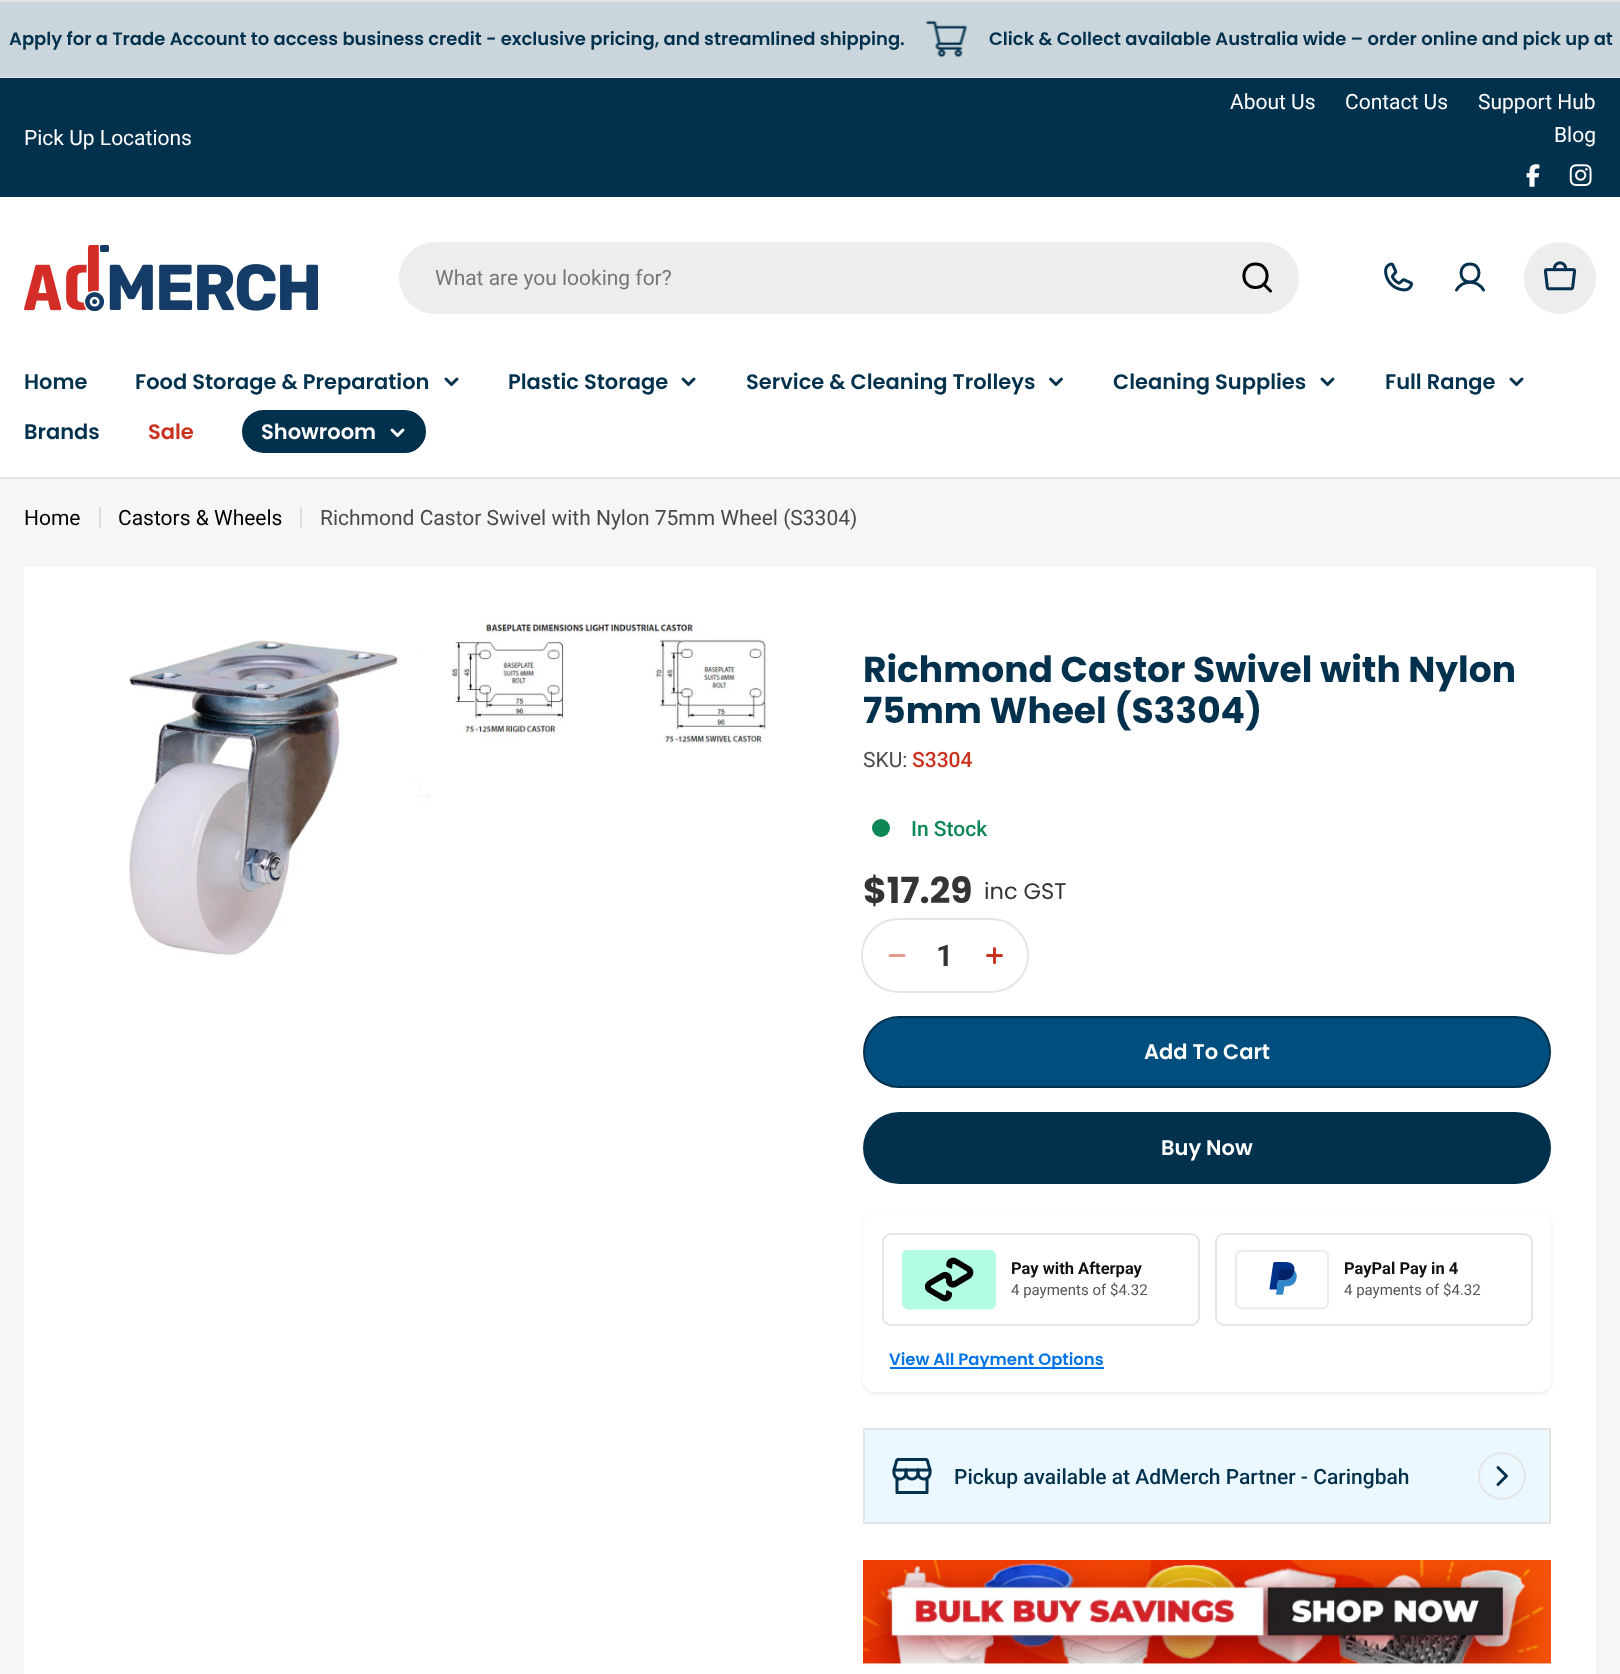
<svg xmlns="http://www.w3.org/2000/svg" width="1620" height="1674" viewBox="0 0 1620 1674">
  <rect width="100%" height="100%" fill="rgb(246,246,246)"/>
  <rect x="0" y="2" width="1620" height="75" fill="rgb(203,214,220)"/>
  <rect x="0" y="0" width="1620" height="2" fill="rgb(229,229,229)"/>
  <rect x="0" y="77" width="1620" height="1" fill="rgb(229,229,229)"/>
  <text x="9" y="45" font-family="Poppins" font-size="18" font-weight="600" fill="rgb(2,49,78)">Apply for a Trade Account to access business credit - exclusive pricing, and streamlined shipping.</text>
  <image x="925" y="20" width="43" height="38" href="pic1.png"/>
  <text x="989" y="45" font-family="Poppins" font-size="18" font-weight="600" fill="rgb(2,49,78)">Click &amp; Collect available Australia wide – order online and pick up at</text>
  <rect x="0" y="78" width="1620" height="119" fill="rgb(2,49,78)"/>
  <g font-family="Roboto" font-size="21" fill="rgb(255,255,255)">
    <text x="24" y="145">Pick Up Locations</text>
    <text x="1230" y="109">About Us</text>
    <text x="1345" y="109">Contact Us</text>
    <text x="1478" y="109">Support Hub</text>
    <text x="1554" y="142">Blog</text>
  </g>
  <image x="1526" y="164" width="14" height="23" href="pic2.png"/>
  <image x="1569" y="164" width="23" height="23" href="pic3.png"/>
  <rect x="0" y="197" width="1620" height="280" fill="rgb(255,255,255)"/>
  <image x="24" y="245" width="294" height="66" href="pic4.png"/>
  <rect x="399" y="242" width="900" height="72" rx="36" fill="rgb(237,237,237)"/>
  <text x="435" y="285" font-family="Roboto" font-size="21" fill="rgb(119,119,119)">What are you looking for?</text>
  <path d="M1255.5 287.5C1271 287.5 1271 264 1255.5 264C1240 264 1240 287.5 1255.5 287.5ZM1263.5 284L1270.5 291" fill="none" stroke="rgb(0,0,0)" stroke-width="3" stroke-linecap="round" stroke-linejoin="round"/>
  <image x="1384" y="262" width="29" height="30" href="pic5.png"/>
  <path d="M1470 282C1482 282 1482 264 1470 264C1458 264 1458 282 1470 282ZM1456.5 290C1462.5 279.5 1477.5 279.5 1483.5 290" fill="none" stroke="rgb(2,49,78)" stroke-width="3" stroke-linecap="round" stroke-linejoin="round"/>
  <circle cx="1560" cy="278" r="36" fill="rgb(237,237,237)"/>
  <image x="1543" y="261" width="34" height="30" href="pic6.png"/>
  <rect x="0" y="477" width="1620" height="2" fill="rgb(229,229,229)"/>
  <g font-family="Poppins" font-size="21" font-weight="600" fill="rgb(2,49,78)">
    <text x="24" y="389">Home</text>
    <text x="135" y="389">Food Storage &amp; Preparation</text>
  </g>
  <path d="M457 379L451.5 384.5L446 379" fill="none" stroke="rgb(2,49,78)" stroke-width="3" stroke-linecap="round" stroke-linejoin="round"/>
  <text x="508" y="389" font-family="Poppins" font-size="21" font-weight="600" fill="rgb(2,49,78)">Plastic Storage</text>
  <path d="M694 379L688.5 384.5L683 379" fill="none" stroke="rgb(2,49,78)" stroke-width="3" stroke-linecap="round" stroke-linejoin="round"/>
  <text x="746" y="389" font-family="Poppins" font-size="21" font-weight="600" fill="rgb(2,49,78)">Service &amp; Cleaning Trolleys</text>
  <path d="M1061.5 379L1056 384.5L1050.5 379" fill="none" stroke="rgb(2,49,78)" stroke-width="3" stroke-linecap="round" stroke-linejoin="round"/>
  <text x="1113" y="389" font-family="Poppins" font-size="21" font-weight="600" fill="rgb(2,49,78)">Cleaning Supplies</text>
  <path d="M1333 379L1327.5 384.5L1322 379" fill="none" stroke="rgb(2,49,78)" stroke-width="3" stroke-linecap="round" stroke-linejoin="round"/>
  <text x="1385" y="389" font-family="Poppins" font-size="21" font-weight="600" fill="rgb(2,49,78)">Full Range</text>
  <path d="M1522 379L1516.5 384.5L1511 379" fill="none" stroke="rgb(2,49,78)" stroke-width="3" stroke-linecap="round" stroke-linejoin="round"/>
  <text x="24" y="439" font-family="Poppins" font-size="21" font-weight="600" fill="rgb(2,49,78)">Brands</text>
  <text x="148" y="439" font-family="Poppins" font-size="21" font-weight="600" fill="rgb(203,50,30)">Sale</text>
  <rect x="243" y="411" width="182" height="41" rx="20.5" fill="rgb(2,49,78)" stroke="rgb(2,49,78)" stroke-width="2"/>
  <text x="261" y="439" font-family="Poppins" font-size="21" font-weight="600" fill="rgb(255,255,255)">Showroom</text>
  <path d="M403 430L397.5 435.5L392 430" fill="none" stroke="rgb(255,255,255)" stroke-width="3" stroke-linecap="round" stroke-linejoin="round"/>
  <text x="24" y="525" font-family="Roboto" font-size="21" fill="rgb(0,0,0)">Home</text>
  <rect x="99" y="507" width="2" height="21" fill="rgb(221,221,221)"/>
  <text x="118" y="525" font-family="Roboto" font-size="21" fill="rgb(0,0,0)">Castors &amp; Wheels</text>
  <rect x="300" y="507" width="2" height="21" fill="rgb(221,221,221)"/>
  <text x="320" y="525" font-family="Roboto" font-size="21" fill="rgb(74,74,74)">Richmond Castor Swivel with Nylon 75mm Wheel (S3304)</text>
  <rect x="24" y="567" width="1572" height="1107" fill="rgb(255,255,255)"/>
  <image x="129" y="640" width="300" height="316" href="pic7.png"/>
  <image x="450" y="619" width="318" height="125" href="pic8.png"/>
  <g font-family="Poppins" font-size="36" font-weight="bold" fill="rgb(2,49,78)">
    <text>
      <tspan x="863" y="682">Richmond Castor Swivel with Nylon</tspan>
      <tspan x="863" y="723">75mm Wheel (S3304)</tspan>
    </text>
  </g>
  <text x="863" y="767" font-family="Roboto" font-size="21" fill="rgb(74,74,74)">SKU:</text>
  <text x="912" y="767" font-family="Roboto" font-size="21" font-weight="500" fill="rgb(203,50,30)">S3304</text>
  <circle cx="881" cy="828" r="9" fill="rgb(13,135,86)"/>
  <text x="911" y="836" font-family="Roboto" font-size="21" font-weight="500" fill="rgb(13,135,86)">In Stock</text>
  <text x="863" y="903" font-family="Poppins" font-size="36" font-weight="bold" fill="rgb(52,52,52)">$17.29</text>
  <text x="984" y="899" font-family="Poppins" font-size="22.5" fill="rgb(52,52,52)">inc GST</text>
  <rect x="862" y="919" width="166" height="73" rx="36.5" fill="none" stroke="rgb(229,229,229)" stroke-width="2"/>
  <path d="M890 955.5H904" fill="none" stroke="rgb(229,153,143)" stroke-width="3" stroke-linecap="round" stroke-linejoin="round"/>
  <text x="936" y="966" font-family="Roboto" font-size="30" font-weight="bold" fill="rgb(52,52,52)">1</text>
  <path d="M987.5 955.5H1001.5M994.5 948.5V962.5" fill="none" stroke="rgb(203,50,30)" stroke-width="3" stroke-linecap="round" stroke-linejoin="round"/>
  <rect x="864" y="1017" width="686" height="70" rx="35" fill="rgb(0,78,126)" stroke="rgb(2,49,78)" stroke-width="2"/>
  <text x="1144" y="1059" font-family="Poppins" font-size="21" font-weight="600" fill="rgb(255,255,255)">Add To Cart</text>
  <rect x="863" y="1112" width="688" height="72" rx="36" fill="rgb(2,49,78)"/>
  <text x="1161" y="1155" font-family="Poppins" font-size="21" font-weight="600" fill="rgb(255,255,255)">Buy Now</text>
  <rect x="863" y="1215" width="688" height="179" rx="12" fill="rgba(0,0,0,0.08)" filter="blur(2px)"/>
  <rect x="863" y="1214" width="688" height="178" rx="12" fill="rgb(255,255,255)"/>
  <rect x="883" y="1234" width="316" height="91" rx="8" fill="none" stroke="rgb(229,229,229)" stroke-width="2"/>
  <image x="902" y="1250" width="94" height="60" href="pic9.png"/>
  <text x="1011" y="1274" font-family="Roboto" font-size="16.5" font-weight="bold" fill="rgb(17,17,17)">Pay with Afterpay</text>
  <text x="1011" y="1295" font-family="Roboto" font-size="15" fill="rgb(85,85,85)">4 payments of $4.32</text>
  <rect x="1216" y="1234" width="316" height="91" rx="8" fill="none" stroke="rgb(229,229,229)" stroke-width="2"/>
  <image x="1235" y="1250" width="94" height="60" href="pic10.png"/>
  <text x="1344" y="1274" font-family="Roboto" font-size="16.5" font-weight="bold" fill="rgb(17,17,17)">PayPal Pay in 4</text>
  <text x="1344" y="1295" font-family="Roboto" font-size="15" fill="rgb(85,85,85)">4 payments of $4.32</text>
  <rect x="890" y="1367" width="214" height="2" fill="rgb(0,115,230)"/>
  <text x="889" y="1365" font-family="Poppins" font-size="16.5" font-weight="600" fill="rgb(0,115,230)">View All Payment Options</text>
  <rect x="864" y="1429" width="686" height="94" fill="rgb(236,248,255)" stroke="rgb(229,229,229)" stroke-width="2"/>
  <image x="892" y="1458" width="40" height="36" href="pic11.png"/>
  <text x="954" y="1484" font-family="Roboto" font-size="21" font-weight="500" fill="rgb(2,49,78)">Pickup available at AdMerch Partner - Caringbah</text>
  <circle cx="1502" cy="1476" r="23" fill="none" stroke="rgb(229,229,229)" stroke-width="2"/>
  <path d="M1498 1467.5L1506.5 1476L1498 1484.5" fill="none" stroke="rgb(2,49,78)" stroke-width="3" stroke-linecap="round" stroke-linejoin="round"/>
  <image x="863" y="1560" width="688" height="105" href="pic12.png"/>
</svg>
